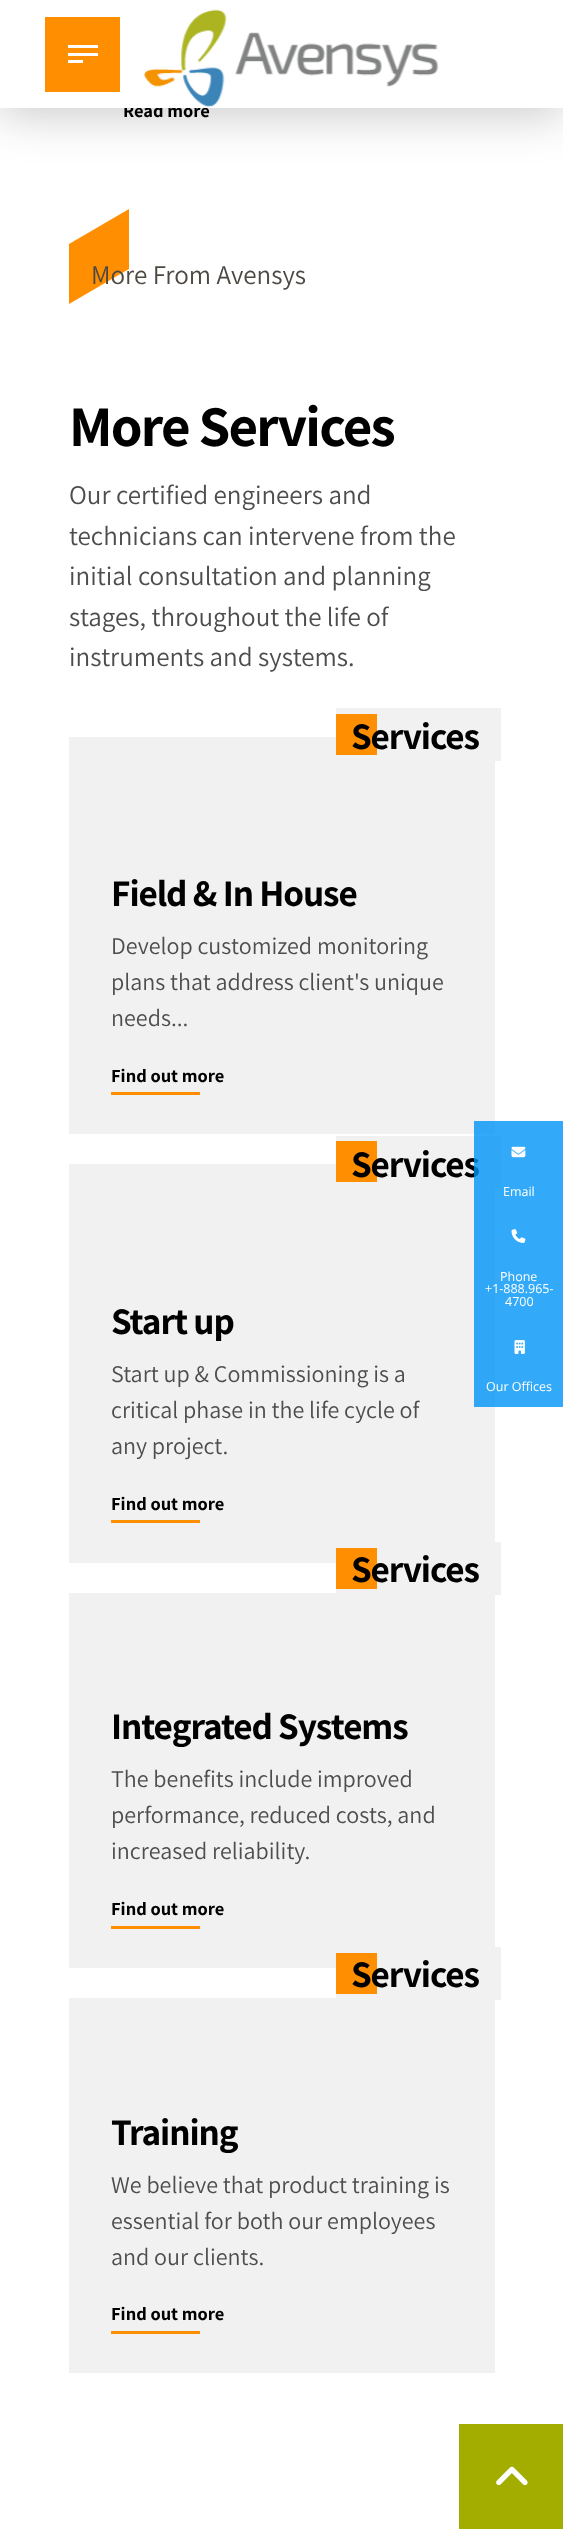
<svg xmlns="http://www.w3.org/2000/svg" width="563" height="2529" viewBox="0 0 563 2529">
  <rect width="100%" height="100%" fill="rgb(255,255,255)"/>
  <rect x="0" y="8" width="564" height="108" fill="rgba(0,0,0,0.2)" filter="blur(22.5px)"/>
  <text x="123" y="117" font-family="Assistant" font-size="18.5" font-weight="bold" fill="rgb(0,0,0)">Read more</text>
  <rect x="0" y="0" width="563" height="108" fill="rgb(255,255,255)"/>
  <rect x="45" y="17" width="75" height="75" fill="rgb(255,143,0)"/>
  <rect x="68" y="45" width="30" height="3" fill="rgb(255,255,255)"/>
  <rect x="68" y="53" width="30" height="3" fill="rgb(255,255,255)"/>
  <rect x="68" y="60" width="15" height="3" fill="rgb(255,255,255)"/>
  <image x="144" y="9" width="295" height="98" href="pic1.png"/>
  <path d="M69 244L129 209V269L69 304Z" fill="rgb(255,143,0)"/>
  <text x="91" y="284" font-family="Assistant" font-size="27" fill="rgb(77,72,66)">More From Avensys</text>
  <text x="69" y="446" font-family="Assistant" font-size="57.5" font-weight="bold" letter-spacing="-1.75" fill="rgb(0,0,0)">More Services</text>
  <g font-family="Assistant" font-size="27" fill="rgb(77,77,77)">
    <text>
      <tspan x="69" y="504">Our certified engineers and</tspan>
      <tspan x="69" y="545">technicians can intervene from the</tspan>
      <tspan x="69" y="585">initial consultation and planning</tspan>
      <tspan x="69" y="626">stages, throughout the life of</tspan>
      <tspan x="69" y="666">instruments and systems.</tspan>
    </text>
  </g>
  <rect x="69" y="737" width="426" height="397" fill="rgb(241,241,241)"/>
  <rect x="336" y="708" width="165" height="53" fill="rgb(241,241,241)"/>
  <rect x="336" y="714" width="41" height="41" fill="rgb(255,143,0)"/>
  <g font-family="Assistant" font-size="37.5" font-weight="bold" letter-spacing="-1.1" fill="rgb(0,0,0)">
    <text x="351" y="749">Services</text>
    <text x="111" y="906">Field &amp; In House</text>
  </g>
  <g font-family="Assistant" font-size="24" fill="rgb(77,77,77)">
    <text>
      <tspan x="111" y="954">Develop customized monitoring</tspan>
      <tspan x="111" y="990">plans that address client's unique</tspan>
      <tspan x="111" y="1026">needs...</tspan>
    </text>
  </g>
  <text x="111" y="1082" font-family="Assistant" font-size="18.5" font-weight="bold" fill="rgb(0,0,0)">Find out more</text>
  <rect x="111" y="1092" width="89" height="3" fill="rgb(255,143,0)"/>
  <rect x="69" y="1164" width="426" height="399" fill="rgb(241,241,241)"/>
  <rect x="336" y="1136" width="165" height="52" fill="rgb(241,241,241)"/>
  <rect x="336" y="1141" width="41" height="41" fill="rgb(255,143,0)"/>
  <g font-family="Assistant" font-size="37.5" font-weight="bold" letter-spacing="-1.1" fill="rgb(0,0,0)">
    <text x="351" y="1177">Services</text>
    <text x="111" y="1334">Start up</text>
  </g>
  <g font-family="Assistant" font-size="24" fill="rgb(77,77,77)">
    <text>
      <tspan x="111" y="1382">Start up &amp; Commissioning is a</tspan>
      <tspan x="111" y="1418">critical phase in the life cycle of</tspan>
      <tspan x="111" y="1454">any project.</tspan>
    </text>
  </g>
  <text x="111" y="1510" font-family="Assistant" font-size="18.5" font-weight="bold" fill="rgb(0,0,0)">Find out more</text>
  <rect x="111" y="1520" width="89" height="3" fill="rgb(255,143,0)"/>
  <rect x="69" y="1593" width="426" height="375" fill="rgb(241,241,241)"/>
  <rect x="336" y="1542" width="165" height="53" fill="rgb(241,241,241)"/>
  <rect x="336" y="1548" width="41" height="41" fill="rgb(255,143,0)"/>
  <g font-family="Assistant" font-size="37.5" font-weight="bold" letter-spacing="-1.1" fill="rgb(0,0,0)">
    <text x="351" y="1582">Services</text>
    <text x="111" y="1739">Integrated Systems</text>
  </g>
  <g font-family="Assistant" font-size="24" fill="rgb(77,77,77)">
    <text>
      <tspan x="111" y="1787">The benefits include improved</tspan>
      <tspan x="111" y="1823">performance, reduced costs, and</tspan>
      <tspan x="111" y="1859">increased reliability.</tspan>
    </text>
  </g>
  <text x="111" y="1915" font-family="Assistant" font-size="18.5" font-weight="bold" fill="rgb(0,0,0)">Find out more</text>
  <rect x="111" y="1926" width="89" height="3" fill="rgb(255,143,0)"/>
  <rect x="69" y="1998" width="426" height="375" fill="rgb(241,241,241)"/>
  <rect x="336" y="1947" width="165" height="53" fill="rgb(241,241,241)"/>
  <rect x="336" y="1953" width="41" height="41" fill="rgb(255,143,0)"/>
  <g font-family="Assistant" font-size="37.5" font-weight="bold" letter-spacing="-1.1" fill="rgb(0,0,0)">
    <text x="351" y="1987">Services</text>
    <text x="111" y="2145">Training</text>
  </g>
  <g font-family="Assistant" font-size="24" fill="rgb(77,77,77)">
    <text>
      <tspan x="111" y="2193">We believe that product training is</tspan>
      <tspan x="111" y="2229">essential for both our employees</tspan>
      <tspan x="111" y="2265">and our clients.</tspan>
    </text>
  </g>
  <text x="111" y="2320" font-family="Assistant" font-size="18.5" font-weight="bold" fill="rgb(0,0,0)">Find out more</text>
  <rect x="111" y="2331" width="89" height="3" fill="rgb(255,143,0)"/>
  <rect x="474" y="1121" width="89" height="286" fill="rgba(0,149,248,0.8)"/>
  <image x="511" y="1146" width="15" height="12" href="pic2.png"/>
  <text x="503" y="1196" font-family="Open Sans" font-size="12.5" fill="rgb(255,255,255)">Email</text>
  <image x="511" y="1229" width="15" height="14" href="pic3.png"/>
  <g font-family="Open Sans" font-size="12.5" fill="rgb(255,255,255)">
    <text x="500" y="1281">Phone</text>
    <text x="485" y="1293">+1-888.965-</text>
    <text x="505" y="1306">4700</text>
  </g>
  <image x="514" y="1340" width="11" height="14" href="pic4.png"/>
  <text x="486" y="1391" font-family="Open Sans" font-size="12.5" fill="rgb(255,255,255)">Our Offices</text>
  <rect x="459" y="2424" width="104" height="105" fill="rgb(162,173,0)"/>
  <image x="496" y="2466" width="32" height="20" href="pic5.png"/>
</svg>
